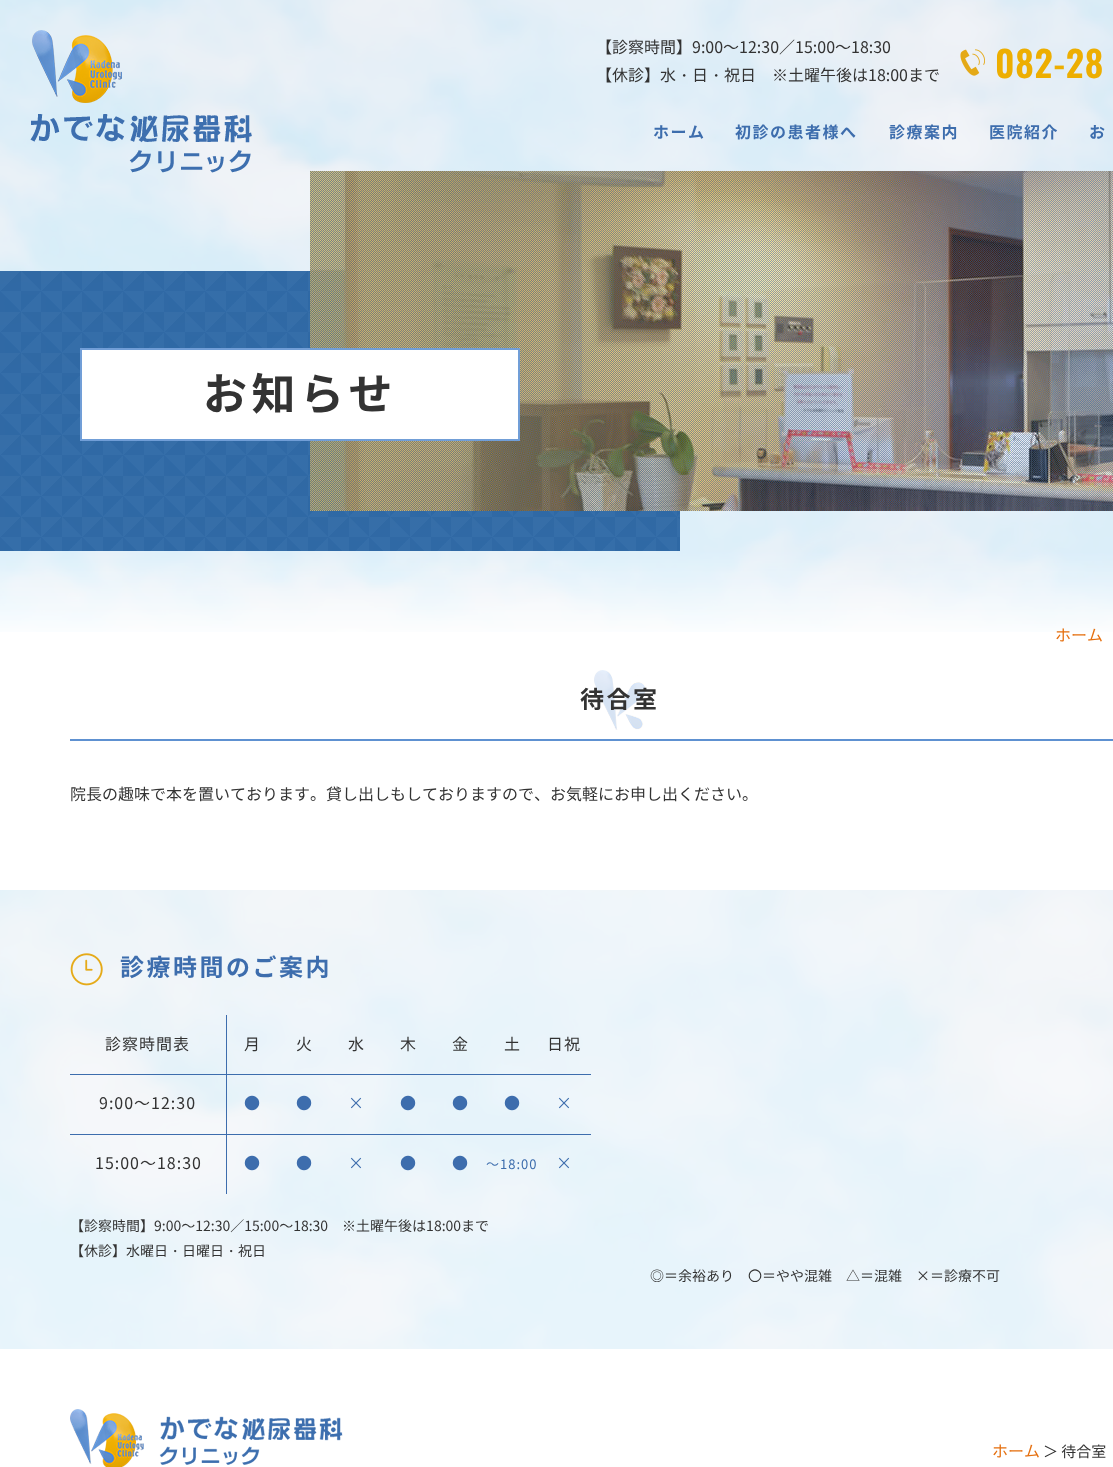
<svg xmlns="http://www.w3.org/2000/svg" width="1113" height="1467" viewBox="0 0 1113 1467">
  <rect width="100%" height="100%" fill="rgb(255,255,255)"/>
  <image x="0" y="0" width="1113" height="632" href="pic1.png"/>
  <image x="30" y="30" width="222" height="143" href="pic2.png"/>
  <g font-family="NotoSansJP" font-size="16" fill="rgb(51,51,51)">
    <text>
      <tspan x="596" y="53">【診察時間】9:00～12:30／15:00～18:30</tspan>
      <tspan x="596" y="81">【休診】水</tspan>
    </text>
  </g>
  <text x="676" y="81" font-family="WenQuanYi Zen Hei" font-size="16" font-weight="500" fill="rgb(51,51,51)">・</text>
  <text x="692" y="81" font-family="NotoSansJP" font-size="16" fill="rgb(51,51,51)">日</text>
  <text x="708" y="81" font-family="WenQuanYi Zen Hei" font-size="16" font-weight="500" fill="rgb(51,51,51)">・</text>
  <text x="724" y="81" font-family="NotoSansJP" font-size="16" fill="rgb(51,51,51)">祝日　※土曜午後は18:00まで</text>
  <image x="960" y="49" width="25" height="27" href="pic3.png"/>
  <text x="995" y="78" font-family="Oswald" font-size="36" font-weight="600" letter-spacing="0.75" fill="rgb(237,174,1)">082-28</text>
  <g font-family="NotoSansJP" font-size="16" font-weight="bold" letter-spacing="1.5" fill="rgb(61,109,173)">
    <text x="653" y="138">ホーム</text>
    <text x="735" y="138">初診の患者様へ</text>
    <text x="889" y="138">診療案内</text>
    <text x="989" y="138">医院紹介</text>
    <text x="1089" y="138">お</text>
  </g>
  <image x="0" y="271" width="680" height="280" href="pic5.png"/>
  <image x="310" y="171" width="803" height="340" href="pic4.png"/>
  <rect x="81" y="349" width="438" height="91" fill="rgb(255,255,255)" stroke="rgb(113,158,215)" stroke-width="2"/>
  <text x="203" y="410" font-family="NotoSansJP" font-size="44" font-weight="bold" letter-spacing="4.5" fill="rgb(51,51,51)">お知らせ</text>
  <text x="1055" y="641" font-family="NotoSansJP" font-size="16" fill="rgb(229,112,16)">ホーム</text>
  <image x="594" y="670" width="52" height="60" href="pic6.png"/>
  <rect x="70" y="739" width="1043" height="2" fill="rgb(94,145,209)"/>
  <text x="580" y="708" font-family="NotoSansJP" font-size="24" font-weight="bold" letter-spacing="2.5" fill="rgb(51,51,51)">待合室</text>
  <text x="70" y="800" font-family="NotoSansJP" font-size="16" fill="rgb(51,51,51)">院長の趣味で本を置いております。貸し出しもしておりますので、お気軽にお申し出ください。</text>
  <image x="0" y="890" width="1113" height="459" href="pic7.png"/>
  <image x="70" y="953" width="33" height="33" href="pic8.png"/>
  <text x="120" y="976" font-family="NotoSansJP" font-size="24" font-weight="bold" letter-spacing="2.5" fill="rgb(61,109,173)">診療時間のご案内</text>
  <rect x="226" y="1134" width="1" height="60" fill="rgb(61,109,173)"/>
  <rect x="226" y="1134" width="365" height="1" fill="rgb(61,109,173)"/>
  <rect x="226" y="1074" width="1" height="61" fill="rgb(61,109,173)"/>
  <rect x="226" y="1074" width="365" height="1" fill="rgb(61,109,173)"/>
  <rect x="226" y="1015" width="1" height="60" fill="rgb(61,109,173)"/>
  <rect x="70" y="1074" width="157" height="1" fill="rgb(61,109,173)"/>
  <g font-family="NotoSansJP" font-size="16" letter-spacing="1" fill="rgb(51,51,51)">
    <text x="105" y="1050">診察時間表</text>
    <text x="244" y="1050">月</text>
    <text x="296" y="1050">火</text>
    <text x="348" y="1050">水</text>
    <text x="400" y="1050">木</text>
    <text x="452" y="1050">金</text>
    <text x="504" y="1050">土</text>
    <text x="547" y="1050">日祝</text>
  </g>
  <rect x="70" y="1134" width="157" height="1" fill="rgb(61,109,173)"/>
  <text x="99" y="1109" font-family="NotoSansJP" font-size="16" letter-spacing="1" fill="rgb(51,51,51)">9:00～12:30</text>
  <g font-family="NotoSansJP" font-size="16" letter-spacing="1" fill="rgb(61,109,173)">
    <text x="244" y="1109">●</text>
    <text x="296" y="1109">●</text>
    <text x="348" y="1109">×</text>
    <text x="400" y="1109">●</text>
    <text x="452" y="1109">●</text>
    <text x="504" y="1109">●</text>
    <text x="556" y="1109">×</text>
  </g>
  <text x="95" y="1169" font-family="NotoSansJP" font-size="16" letter-spacing="1" fill="rgb(51,51,51)">15:00～18:30</text>
  <g font-family="NotoSansJP" font-size="16" letter-spacing="1" fill="rgb(61,109,173)">
    <text x="244" y="1169">●</text>
    <text x="296" y="1169">●</text>
    <text x="348" y="1169">×</text>
    <text x="400" y="1169">●</text>
    <text x="452" y="1169">●</text>
  </g>
  <text x="486" y="1169" font-family="NotoSansJP" font-size="13" letter-spacing="1" fill="rgb(61,109,173)">～18:00</text>
  <text x="556" y="1169" font-family="NotoSansJP" font-size="16" letter-spacing="1" fill="rgb(61,109,173)">×</text>
  <g font-family="NotoSansJP" font-size="14" fill="rgb(51,51,51)">
    <text>
      <tspan x="70" y="1231">【診察時間】9:00～12:30／15:00～18:30　※土曜午後は18:00まで</tspan>
      <tspan x="70" y="1256">【休診】水曜日</tspan>
    </text>
  </g>
  <text x="168" y="1256" font-family="WenQuanYi Zen Hei" font-size="14" font-weight="500" fill="rgb(51,51,51)">・</text>
  <text x="182" y="1256" font-family="NotoSansJP" font-size="14" fill="rgb(51,51,51)">日曜日</text>
  <text x="224" y="1256" font-family="WenQuanYi Zen Hei" font-size="14" font-weight="500" fill="rgb(51,51,51)">・</text>
  <g font-family="NotoSansJP" font-size="14" fill="rgb(51,51,51)">
    <text x="238" y="1256">祝日</text>
    <text x="650" y="1281">◎＝余裕あり　〇＝やや混雑　△＝混雑　×＝診療不可</text>
  </g>
  <image x="70" y="1409" width="273" height="58" href="pic9.png"/>
  <text x="992" y="1457" font-family="NotoSansJP" font-size="16" fill="rgb(229,112,16)">ホーム</text>
  <text x="1043" y="1457" font-family="NotoSansJP" font-size="15" fill="rgb(51,51,51)">＞ 待合室</text>
</svg>
